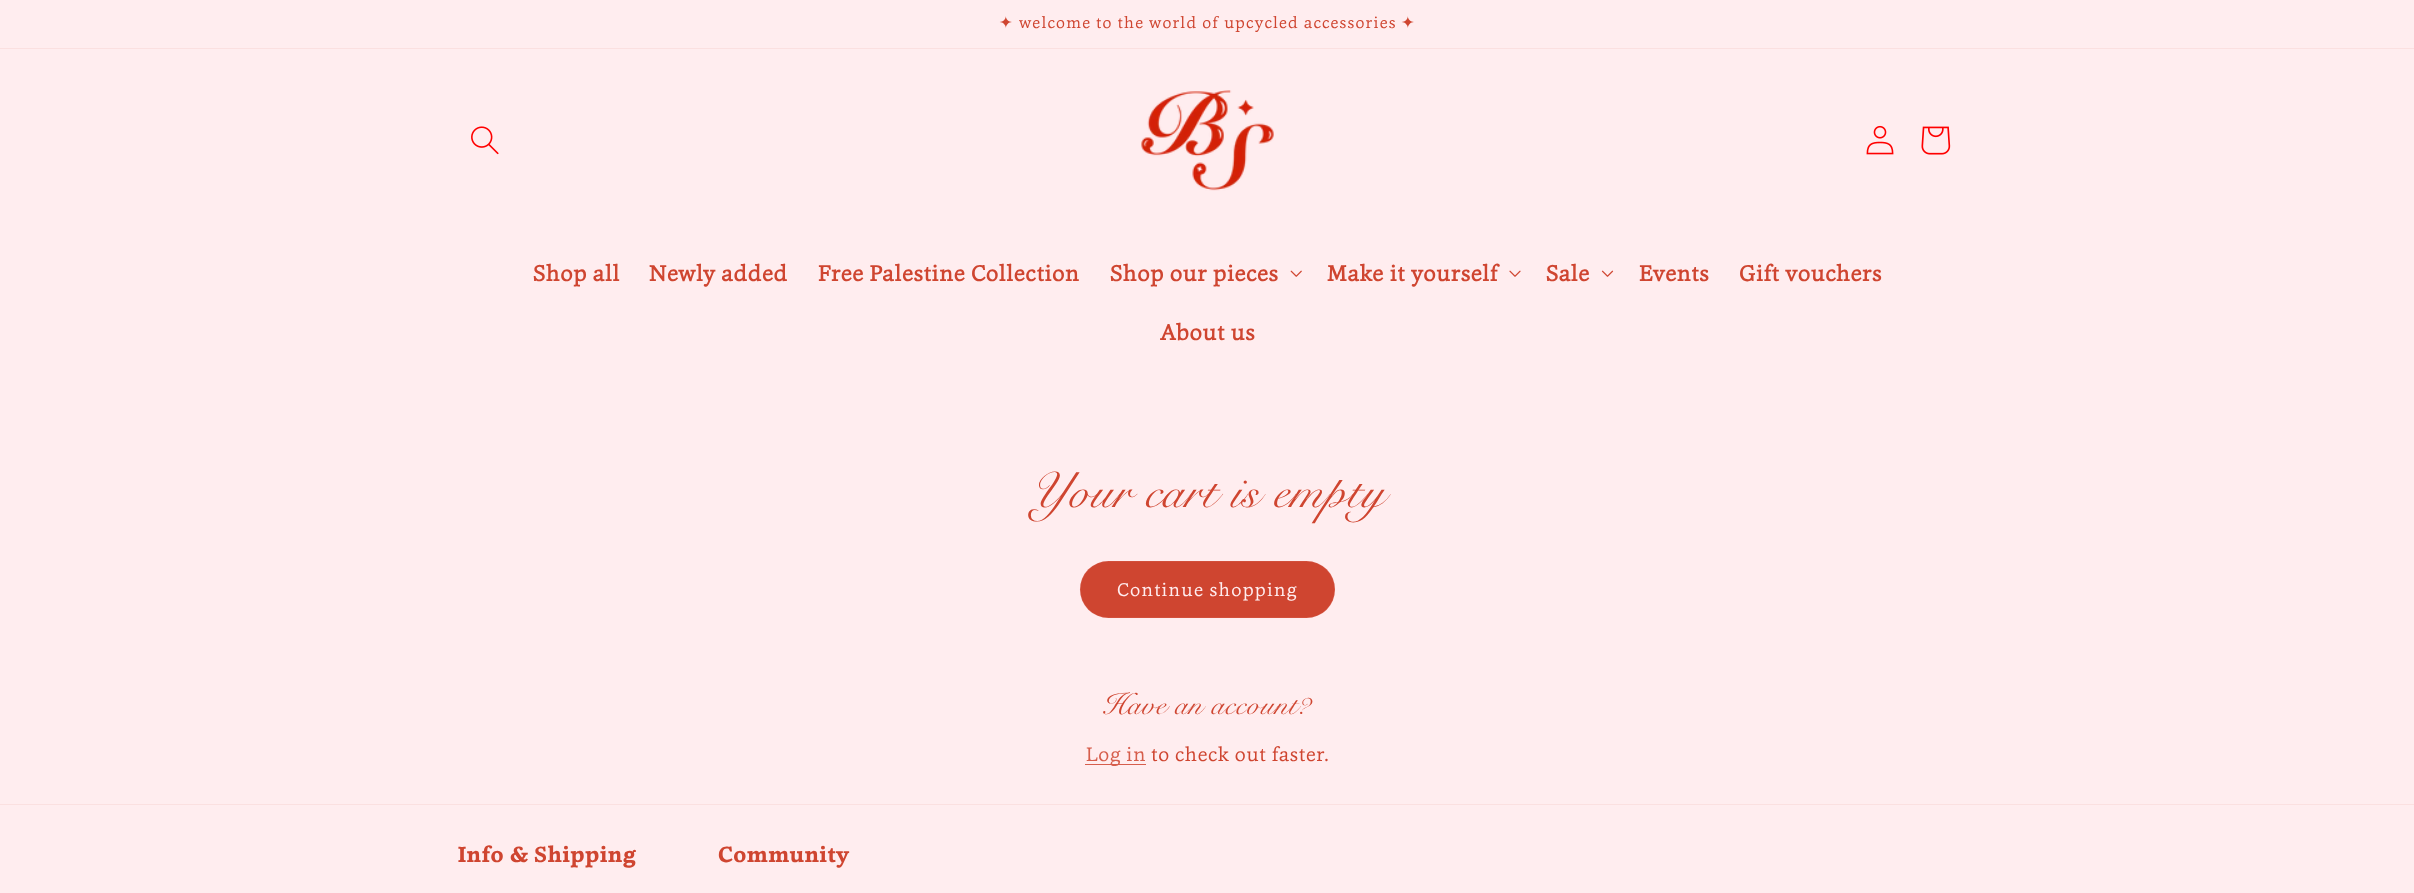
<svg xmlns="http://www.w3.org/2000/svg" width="2414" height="893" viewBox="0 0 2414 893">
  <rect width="100%" height="100%" fill="rgb(255,237,239)"/>
  <rect x="0" y="48" width="2414" height="1" fill="rgb(251,224,224)"/>
  <text x="999" y="28" font-family="DejaVu Sans" font-size="16.25" letter-spacing="1.25" fill="rgb(207,69,48)">✦</text>
  <text x="1019" y="28" font-family="'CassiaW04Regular'" font-size="16.25" letter-spacing="1.25" fill="rgb(207,69,48)">welcome to the world of upcycled accessories</text>
  <text x="1401" y="28" font-family="DejaVu Sans" font-size="16.25" letter-spacing="1.25" fill="rgb(207,69,48)">✦</text>
  <image x="471" y="126" width="28" height="29" href="pic1.png"/>
  <image x="1141" y="90" width="133" height="101" href="pic2.png"/>
  <image x="1866" y="125" width="28" height="30" href="pic3.png"/>
  <image x="1921" y="126" width="30" height="29" href="pic4.png"/>
  <g font-family="'CassiaW04Regular'" font-size="22.5" font-weight="bold" letter-spacing="0.75" fill="rgb(207,69,48)">
    <text x="533" y="281">Shop all</text>
    <text x="649" y="281">Newly added</text>
    <text x="818" y="281">Free Palestine Collection</text>
    <text x="1110" y="281">Shop our pieces</text>
  </g>
  <image x="1290" y="270" width="12" height="7" href="pic5.png"/>
  <text x="1327" y="281" font-family="'CassiaW04Regular'" font-size="22.5" font-weight="bold" letter-spacing="0.75" fill="rgb(207,69,48)">Make it yourself</text>
  <image x="1509" y="270" width="12" height="7" href="pic6.png"/>
  <text x="1546" y="281" font-family="'CassiaW04Regular'" font-size="22.5" font-weight="bold" letter-spacing="0.75" fill="rgb(207,69,48)">Sale</text>
  <image x="1601" y="270" width="13" height="7" href="pic7.png"/>
  <g font-family="'CassiaW04Regular'" font-size="22.5" font-weight="bold" letter-spacing="0.75" fill="rgb(207,69,48)">
    <text x="1639" y="281">Events</text>
    <text x="1739" y="281">Gift vouchers</text>
    <text x="1160" y="340">About us</text>
  </g>
  <text x="1029" y="507" font-family="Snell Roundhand" font-size="50" font-weight="500" letter-spacing="0.75" fill="rgb(207,69,48)">Your cart is empty</text>
  <rect x="1080" y="561" width="255" height="57" rx="28.5" fill="rgb(207,69,48)"/>
  <rect x="1080.2" y="561.2" width="254.6" height="56.6" rx="28.3" fill="none" stroke="rgba(255,237,239,0.25)" stroke-width="0.4"/>
  <text x="1117" y="596" font-family="'CassiaW04Regular'" font-size="18.75" letter-spacing="1.25" fill="rgb(255,237,239)">Continue shopping</text>
  <text x="1102" y="714" font-family="Snell Roundhand" font-size="30" font-weight="500" letter-spacing="0.75" fill="rgb(207,69,48)">Have an account?</text>
  <rect x="1085" y="764" width="61" height="1" fill="rgb(214,94,77)"/>
  <text x="1086" y="761" font-family="'CassiaW04Regular'" font-size="20" letter-spacing="0.75" fill="rgb(214,94,76)">Log in</text>
  <text x="1151" y="761" font-family="'CassiaW04Regular'" font-size="20" letter-spacing="0.75" fill="rgb(207,69,48)">to check out faster.</text>
  <rect x="0" y="804" width="2414" height="1" fill="rgb(251,224,224)"/>
  <g font-family="'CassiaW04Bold'" font-size="22.5" font-weight="bold" letter-spacing="0.75" fill="rgb(207,69,48)">
    <text x="458" y="862">Info &amp; Shipping</text>
    <text x="718" y="862">Community</text>
  </g>
</svg>
